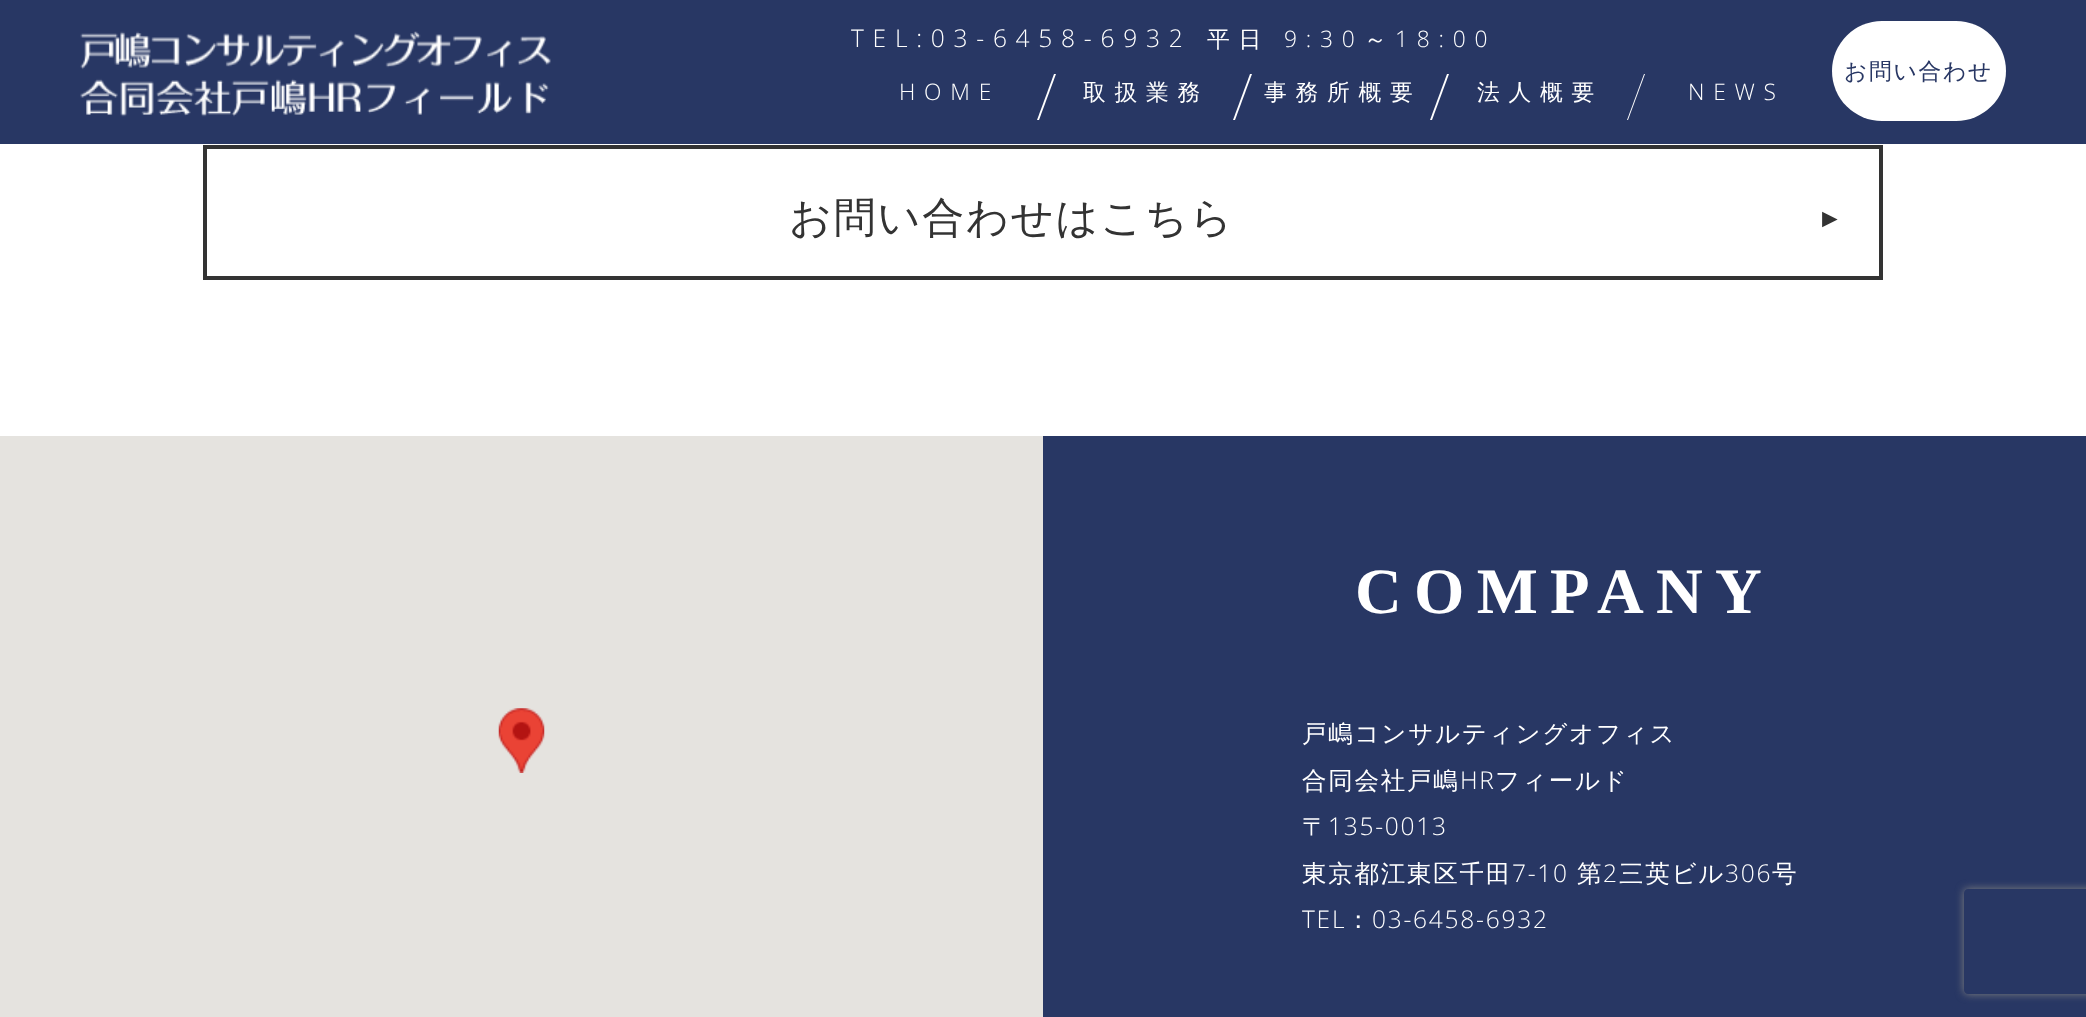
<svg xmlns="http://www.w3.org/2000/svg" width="2086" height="1017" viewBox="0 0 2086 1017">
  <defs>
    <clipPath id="clip1"><path d="M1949 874H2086V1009H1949ZM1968 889H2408C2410 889 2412 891 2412 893V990C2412 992 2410 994 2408 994H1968C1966 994 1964 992 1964 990V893C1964 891 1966 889 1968 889Z" clip-rule="evenodd"/></clipPath>
  </defs>
  <rect width="100%" height="100%" fill="rgb(255,255,255)"/>
  <rect x="0" y="0" width="2086" height="144" fill="rgb(40,55,100)"/>
  <image x="80" y="31" width="471" height="86" href="pic1.png"/>
  <text x="851" y="47" font-family="Open Sans" font-size="24.5" font-weight="300" letter-spacing="8.75" fill="rgb(255,255,255)">TEL:03-6458-6932</text>
  <text x="1207" y="47" font-family="WenQuanYi Zen Hei" font-size="22.75" font-weight="500" letter-spacing="8.75" fill="rgb(255,255,255)">平日</text>
  <text x="1284" y="47" font-family="Open Sans" font-size="22.75" font-weight="300" letter-spacing="8.75" fill="rgb(255,255,255)">9:30</text>
  <text x="1364" y="47" font-family="WenQuanYi Zen Hei" font-size="22.75" font-weight="500" letter-spacing="8.75" fill="rgb(255,255,255)">～</text>
  <text x="1395" y="47" font-family="Open Sans" font-size="22.75" font-weight="300" letter-spacing="8.75" fill="rgb(255,255,255)">18:00</text>
  <rect x="1832" y="21" width="174" height="100" rx="50" fill="rgb(255,255,255)"/>
  <text x="1844" y="79" font-family="WenQuanYi Zen Hei" font-size="22.75" font-weight="500" letter-spacing="1.75" fill="rgb(40,55,100)">お問い合わせ</text>
  <path d="M1054 74H1056L1039 120H1037Z" fill="rgb(255,255,255)"/>
  <text x="899" y="100" font-family="Open Sans" font-size="22.75" font-weight="300" letter-spacing="8.75" fill="rgb(255,255,255)">HOME</text>
  <path d="M1250 74H1252L1235 120H1233Z" fill="rgb(255,255,255)"/>
  <text x="1083" y="100" font-family="WenQuanYi Zen Hei" font-size="22.75" font-weight="500" letter-spacing="8.75" fill="rgb(255,255,255)">取扱業務</text>
  <path d="M1447 74H1449L1432 120H1430Z" fill="rgb(255,255,255)"/>
  <text x="1264" y="100" font-family="WenQuanYi Zen Hei" font-size="22.75" font-weight="500" letter-spacing="8.75" fill="rgb(255,255,255)">事務所概要</text>
  <path d="M1644 74H1645L1628 120H1627Z" fill="rgb(255,255,255)"/>
  <text x="1477" y="100" font-family="WenQuanYi Zen Hei" font-size="22.75" font-weight="500" letter-spacing="8.75" fill="rgb(255,255,255)">法人概要</text>
  <text x="1688" y="100" font-family="Open Sans" font-size="22.75" font-weight="300" letter-spacing="8.75" fill="rgb(255,255,255)">NEWS</text>
  <rect x="205" y="147" width="1676" height="131" fill="none" stroke="rgb(51,51,51)" stroke-width="4"/>
  <text x="789" y="232" font-family="WenQuanYi Zen Hei" font-size="42" font-weight="500" letter-spacing="1.75" fill="rgb(51,51,51)">お問い合わせはこちら</text>
  <text x="1817" y="227" font-family="Liberation Sans" font-size="26" letter-spacing="1.75" fill="rgb(51,51,51)">►</text>
  <rect x="1043" y="436" width="1043" height="581" fill="rgb(40,55,100)"/>
  <rect x="0" y="436" width="1043" height="581" fill="rgb(229,227,223)"/>
  <image x="498" y="708" width="47" height="65" href="pic2.png"/>
  <text x="1355" y="613" font-family="Liberation Serif" font-size="64.75" font-weight="bold" letter-spacing="12.25" fill="rgb(255,255,255)">COMPANY</text>
  <g font-family="WenQuanYi Zen Hei" font-size="24.5" font-weight="500" letter-spacing="1.75" fill="rgb(255,255,255)">
    <text>
      <tspan x="1302" y="742">戸嶋コンサルティングオフィス</tspan>
      <tspan x="1302" y="789">合同会社戸嶋</tspan>
    </text>
  </g>
  <text x="1460" y="789" font-family="Open Sans" font-size="24.5" font-weight="300" letter-spacing="1.75" fill="rgb(255,255,255)">HR</text>
  <g font-family="WenQuanYi Zen Hei" font-size="24.5" font-weight="500" letter-spacing="1.75" fill="rgb(255,255,255)">
    <text x="1495" y="789">フィールド</text>
    <text x="1302" y="835">〒</text>
  </g>
  <text x="1328" y="835" font-family="Open Sans" font-size="24.5" font-weight="300" letter-spacing="1.75" fill="rgb(255,255,255)">135-0013</text>
  <text x="1302" y="882" font-family="WenQuanYi Zen Hei" font-size="24.5" font-weight="500" letter-spacing="1.75" fill="rgb(255,255,255)">東京都江東区千田</text>
  <text x="1512" y="882" font-family="Open Sans" font-size="24.5" font-weight="300" letter-spacing="1.75" fill="rgb(255,255,255)">7-10</text>
  <text x="1577" y="882" font-family="WenQuanYi Zen Hei" font-size="24.5" font-weight="500" letter-spacing="1.75" fill="rgb(255,255,255)">第</text>
  <text x="1603" y="882" font-family="Open Sans" font-size="24.5" font-weight="300" letter-spacing="1.75" fill="rgb(255,255,255)">2</text>
  <text x="1619" y="882" font-family="WenQuanYi Zen Hei" font-size="24.5" font-weight="500" letter-spacing="1.75" fill="rgb(255,255,255)">三英ビル</text>
  <text x="1725" y="882" font-family="Open Sans" font-size="24.5" font-weight="300" letter-spacing="1.75" fill="rgb(255,255,255)">306</text>
  <text x="1772" y="882" font-family="WenQuanYi Zen Hei" font-size="24.5" font-weight="500" letter-spacing="1.75" fill="rgb(255,255,255)">号</text>
  <text x="1302" y="928" font-family="Open Sans" font-size="24.5" font-weight="300" letter-spacing="1.75" fill="rgb(255,255,255)">TEL</text>
  <text x="1346" y="928" font-family="WenQuanYi Zen Hei" font-size="24.5" font-weight="500" letter-spacing="1.75" fill="rgb(255,255,255)">：</text>
  <text x="1372" y="928" font-family="Open Sans" font-size="24.5" font-weight="300" letter-spacing="1.75" fill="rgb(255,255,255)">03-6458-6932</text>
  <g clip-path="url(#clip1)">
    <rect x="1964" y="889" width="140" height="105" rx="4" fill="rgb(128,128,128)" filter="blur(4.5px)"/>
  </g>
</svg>
